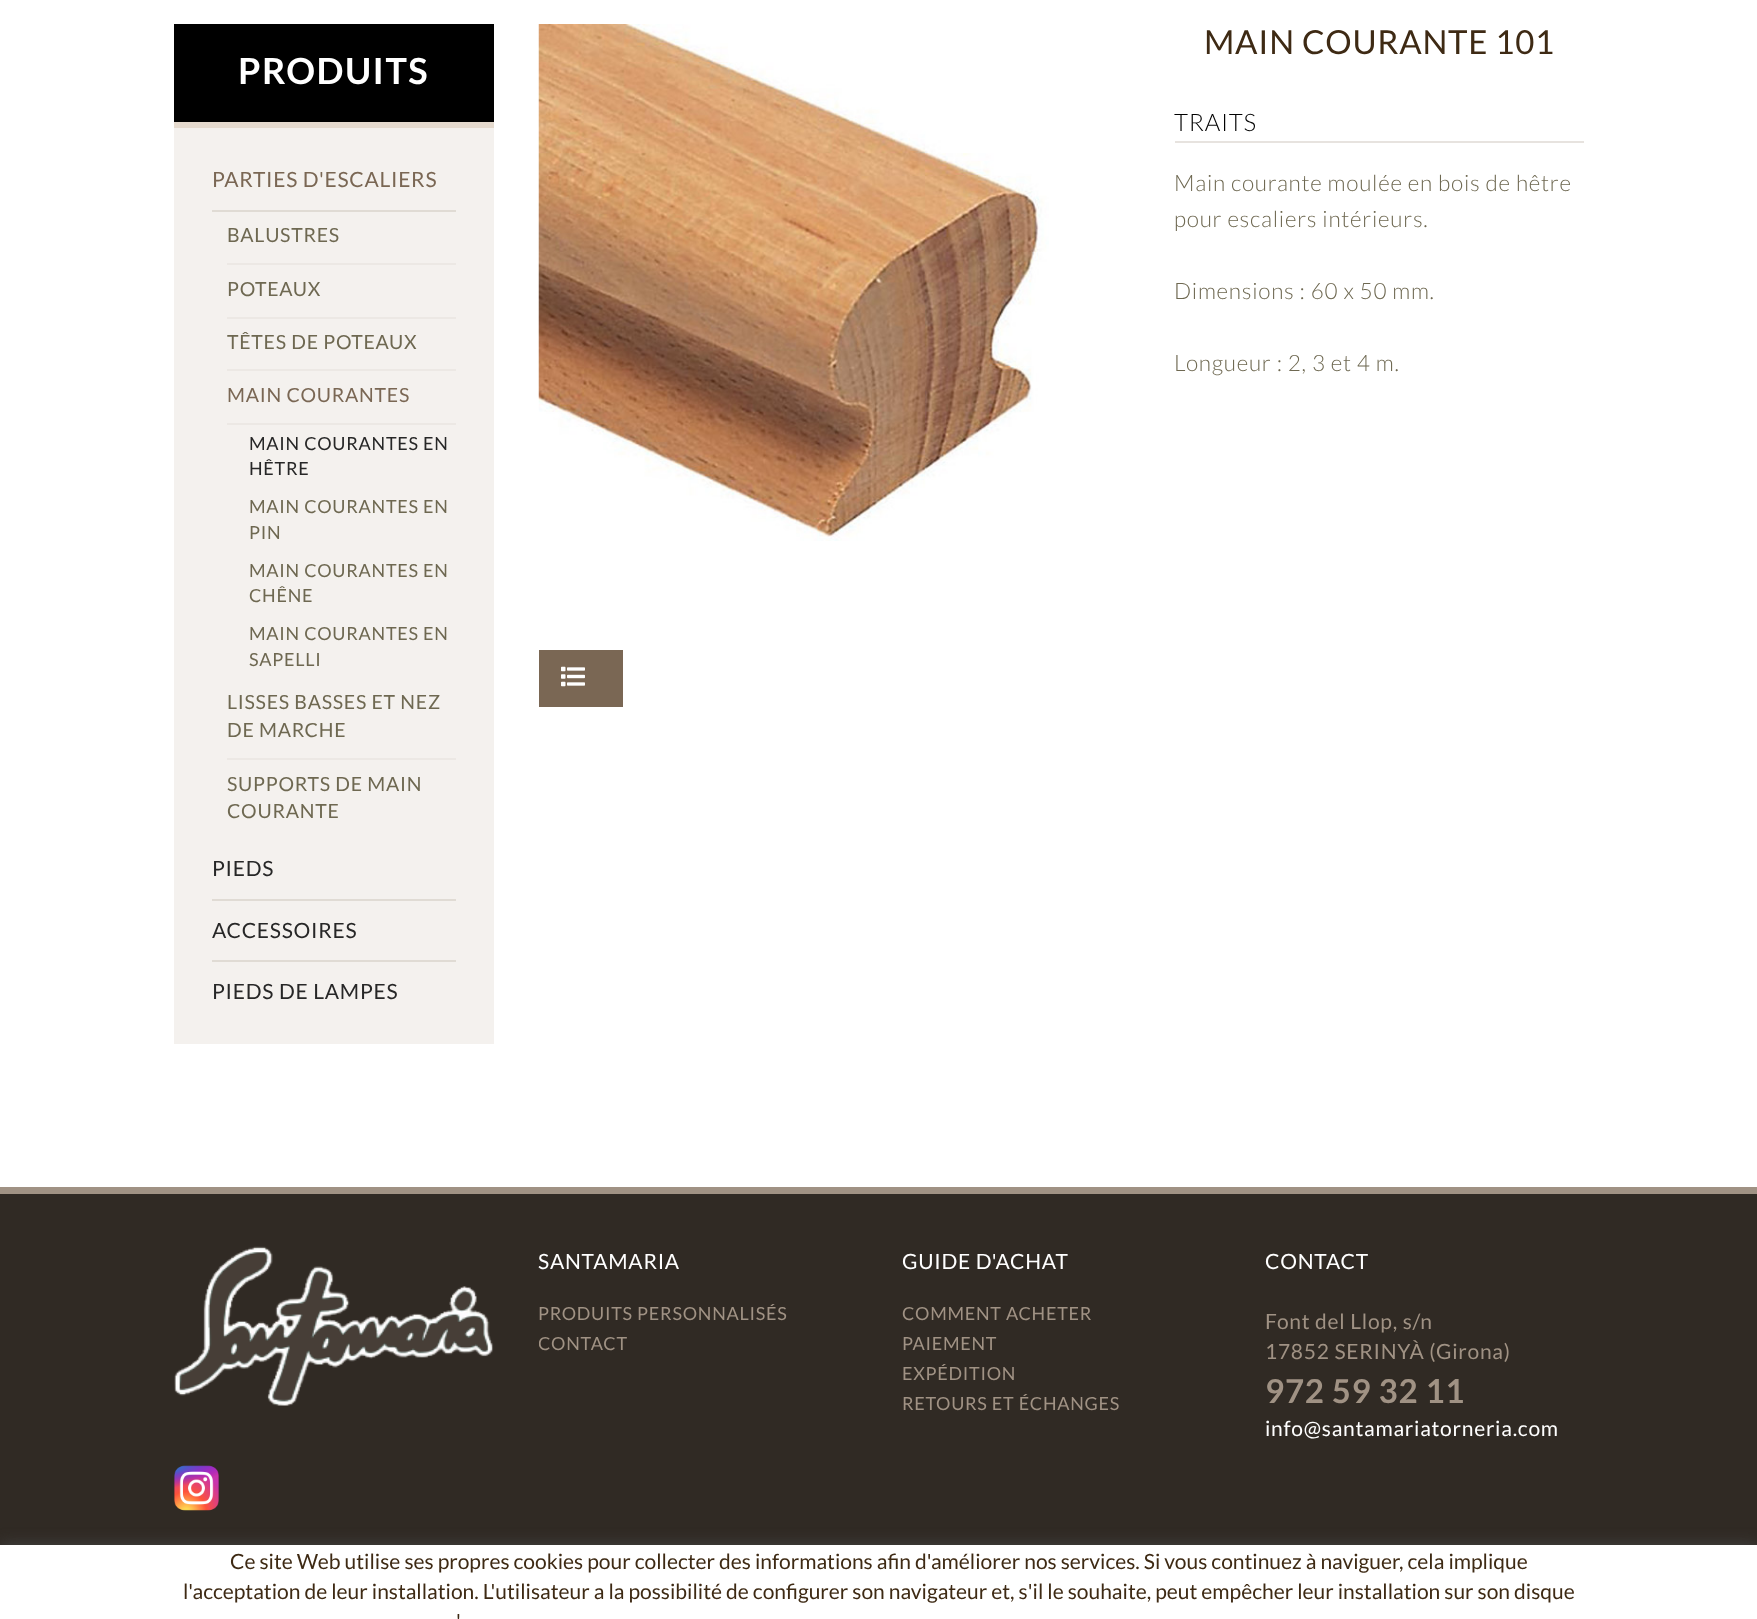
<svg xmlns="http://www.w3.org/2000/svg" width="1757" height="1619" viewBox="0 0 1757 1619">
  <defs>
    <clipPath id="clip1"><rect x="539" y="1299" width="318" height="60"/></clipPath>
  </defs>
  <rect width="100%" height="100%" fill="rgb(255,255,255)"/>
  <rect x="174" y="128" width="320" height="916" fill="rgb(244,241,238)"/>
  <rect x="174" y="24" width="320" height="98" fill="rgb(0,0,0)"/>
  <rect x="174" y="122" width="320" height="6" fill="rgb(229,218,206)"/>
  <text x="238" y="84" font-family="Lato" font-size="36" font-weight="bold" letter-spacing="1.5" fill="rgb(255,255,255)">PRODUITS</text>
  <rect x="212" y="210" width="244" height="2" fill="rgb(224,219,212)"/>
  <text x="212" y="187" font-family="Lato" font-size="21" letter-spacing="0.75" fill="rgb(122,103,84)">PARTIES D'ESCALIERS</text>
  <rect x="227" y="263" width="229" height="2" fill="rgb(236,232,228)"/>
  <text x="227" y="242" font-family="Lato" font-size="19.5" letter-spacing="0.75" fill="rgb(110,104,81)">BALUSTRES</text>
  <rect x="227" y="317" width="229" height="2" fill="rgb(236,232,228)"/>
  <text x="227" y="296" font-family="Lato" font-size="19.5" letter-spacing="0.75" fill="rgb(110,104,81)">POTEAUX</text>
  <rect x="227" y="369" width="229" height="2" fill="rgb(236,232,228)"/>
  <text x="227" y="349" font-family="Lato" font-size="19.5" letter-spacing="0.75" fill="rgb(110,104,81)">TÊTES DE POTEAUX</text>
  <rect x="227" y="423" width="229" height="2" fill="rgb(236,232,228)"/>
  <text x="227" y="402" font-family="Lato" font-size="19.5" letter-spacing="0.75" fill="rgb(122,103,84)">MAIN COURANTES</text>
  <g font-family="Lato" font-size="18" letter-spacing="0.75" fill="rgb(39,39,39)">
    <text>
      <tspan x="249" y="450">MAIN COURANTES EN</tspan>
      <tspan x="249" y="475">HÊTRE</tspan>
    </text>
  </g>
  <g font-family="Lato" font-size="18" letter-spacing="0.75" fill="rgb(110,104,81)">
    <text>
      <tspan x="249" y="513">MAIN COURANTES EN</tspan>
      <tspan x="249" y="539">PIN</tspan>
    </text>
    <text>
      <tspan x="249" y="577">MAIN COURANTES EN</tspan>
      <tspan x="249" y="602">CHÊNE</tspan>
    </text>
    <text>
      <tspan x="249" y="640">MAIN COURANTES EN</tspan>
      <tspan x="249" y="666">SAPELLI</tspan>
    </text>
  </g>
  <rect x="227" y="758" width="229" height="2" fill="rgb(236,232,228)"/>
  <g font-family="Lato" font-size="19.5" letter-spacing="0.75" fill="rgb(110,104,81)">
    <text>
      <tspan x="227" y="709">LISSES BASSES ET NEZ</tspan>
      <tspan x="227" y="737">DE MARCHE</tspan>
    </text>
    <text>
      <tspan x="227" y="791">SUPPORTS DE MAIN</tspan>
      <tspan x="227" y="818">COURANTE</tspan>
    </text>
  </g>
  <rect x="212" y="899" width="244" height="2" fill="rgb(224,219,212)"/>
  <text x="212" y="876" font-family="Lato" font-size="21" letter-spacing="0.75" fill="rgb(39,39,39)">PIEDS</text>
  <rect x="212" y="960" width="244" height="2" fill="rgb(224,219,212)"/>
  <g font-family="Lato" font-size="21" letter-spacing="0.75" fill="rgb(39,39,39)">
    <text x="212" y="938">ACCESSOIRES</text>
    <text x="212" y="999">PIEDS DE LAMPES</text>
  </g>
  <image x="538" y="24" width="511" height="517" href="pic1.png"/>
  <text x="1204" y="54" font-family="Lato" font-size="33" letter-spacing="0.75" fill="rgb(62,42,20)">MAIN COURANTE 101</text>
  <rect x="1175" y="141" width="409" height="2" fill="rgb(231,227,223)"/>
  <text x="1174" y="131" font-family="Lato" font-size="24" font-weight="300" letter-spacing="0.75" fill="rgb(1,1,1)">TRAITS</text>
  <g font-family="Lato" font-size="22.5" font-weight="300" letter-spacing="0.75" fill="rgb(110,104,81)">
    <text>
      <tspan x="1174" y="191">Main courante moulée en bois de hêtre</tspan>
      <tspan x="1174" y="227">pour escaliers intérieurs.</tspan>
    </text>
    <text x="1174" y="299">Dimensions : 60 x 50 mm.</text>
    <text x="1174" y="371">Longueur : 2, 3 et 4 m.</text>
  </g>
  <rect x="539" y="650" width="84" height="57" fill="rgb(122,103,84)"/>
  <image x="561" y="666" width="24" height="21" href="pic2.png"/>
  <rect x="0" y="1194" width="1757" height="351" fill="rgb(48,42,36)"/>
  <rect x="0" y="1187" width="1757" height="7" fill="rgb(160,146,132)"/>
  <image x="174" y="1246" width="320" height="160" href="pic3.png"/>
  <image x="174" y="1465" width="45" height="46" href="pic4.png"/>
  <text x="538" y="1269" font-family="Lato" font-size="21" letter-spacing="0.75" fill="rgb(255,255,255)">SANTAMARIA</text>
  <text x="538" y="1320" font-family="Lato" font-size="18" letter-spacing="0.75" fill="rgb(160,146,132)">PRODUITS PERSONNALISÉS</text>
  <g clip-path="url(#clip1)">
    <text x="538" y="1350" font-family="Lato" font-size="18" letter-spacing="0.75" fill="rgb(160,146,132)">CONTACT</text>
  </g>
  <text x="902" y="1269" font-family="Lato" font-size="21" letter-spacing="0.75" fill="rgb(255,255,255)">GUIDE D'ACHAT</text>
  <g font-family="Lato" font-size="18" letter-spacing="0.75" fill="rgb(160,146,132)">
    <text>
      <tspan x="902" y="1320">COMMENT ACHETER</tspan>
      <tspan x="902" y="1350">PAIEMENT</tspan>
      <tspan x="902" y="1380">EXPÉDITION</tspan>
      <tspan x="902" y="1410">RETOURS ET ÉCHANGES</tspan>
    </text>
  </g>
  <text x="1265" y="1269" font-family="Lato" font-size="21" letter-spacing="0.75" fill="rgb(255,255,255)">CONTACT</text>
  <g font-family="Lato" font-size="21" letter-spacing="0.75" fill="rgb(160,146,132)">
    <text>
      <tspan x="1265" y="1329">Font del Llop, s/n</tspan>
      <tspan x="1265" y="1359">17852 SERINYÀ (Girona)</tspan>
    </text>
  </g>
  <text x="1265" y="1403" font-family="Lato" font-size="33" font-weight="bold" letter-spacing="0.75" fill="rgb(160,146,132)">972 59 32 11</text>
  <text x="1265" y="1436" font-family="Lato" font-size="21" letter-spacing="0.75" fill="rgb(255,255,255)">info@santamariatorneria.com</text>
  <rect x="0" y="1545" width="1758" height="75" fill="rgb(68,68,68)" filter="blur(7.5px)"/>
  <rect x="0" y="1545" width="1757" height="74" fill="rgb(255,255,255)"/>
  <g font-family="Lato" font-size="21" fill="rgb(62,42,20)">
    <text x="230" y="1569">Ce site Web utilise ses propres cookies pour collecter des informations afin d'améliorer nos services. Si vous continuez à naviguer, cela implique</text>
    <text x="183" y="1599">l'acceptation de leur installation. L'utilisateur a la possibilité de configurer son navigateur et, s'il le souhaite, peut empêcher leur installation sur son disque</text>
    <text x="456" y="1629">'</text>
  </g>
</svg>
